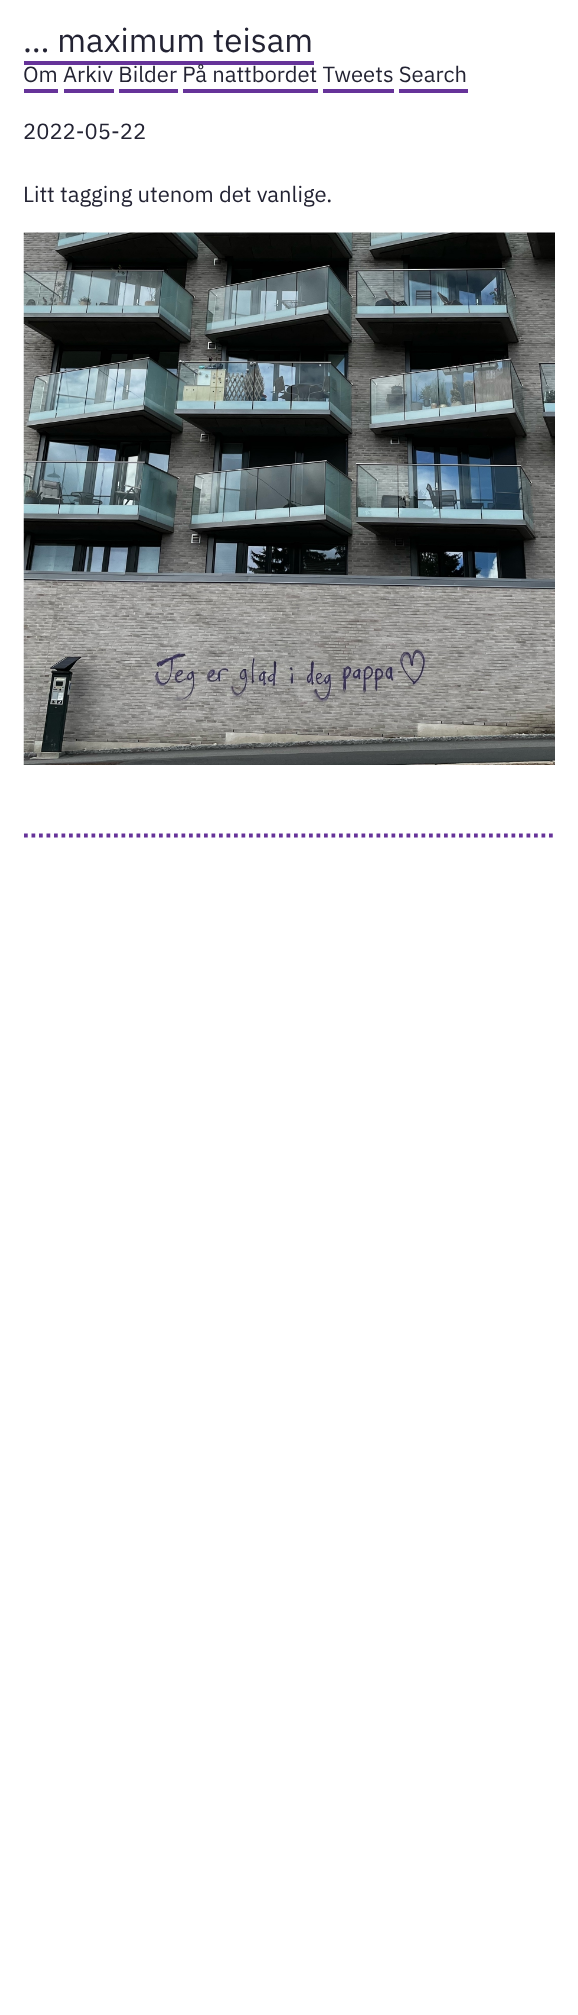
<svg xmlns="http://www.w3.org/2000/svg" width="578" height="2015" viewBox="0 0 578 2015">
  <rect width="100%" height="100%" fill="rgb(255,255,255)"/>
  <text x="23" y="52" font-family="IBM Plex Sans" font-size="33" fill="rgb(35,35,51)">… maximum teisam</text>
  <rect x="24" y="61" width="290" height="4" fill="rgb(102,51,153)"/>
  <text x="23" y="82" font-family="IBM Plex Sans" font-size="22" fill="rgb(35,35,51)">Om Arkiv Bilder På nattbordet Tweets Search</text>
  <rect x="24" y="89" width="34" height="4" fill="rgb(102,51,153)"/>
  <rect x="64" y="89" width="50" height="4" fill="rgb(102,51,153)"/>
  <rect x="119" y="89" width="59" height="4" fill="rgb(102,51,153)"/>
  <rect x="183" y="89" width="135" height="4" fill="rgb(102,51,153)"/>
  <rect x="323" y="89" width="71" height="4" fill="rgb(102,51,153)"/>
  <rect x="399" y="89" width="69" height="4" fill="rgb(102,51,153)"/>
  <g font-family="IBM Plex Sans" font-size="22" fill="rgb(35,35,51)">
    <text x="23" y="139">2022-05-22</text>
    <text x="23" y="202">Litt tagging utenom det vanlige.</text>
  </g>
  <image x="23" y="232" width="532" height="533" href="pic1.png"/>
  <path d="M24 835.5H555" fill="none" stroke="rgb(102,51,153)" stroke-width="3.8" stroke-dasharray="3.75 3.75"/>
</svg>
